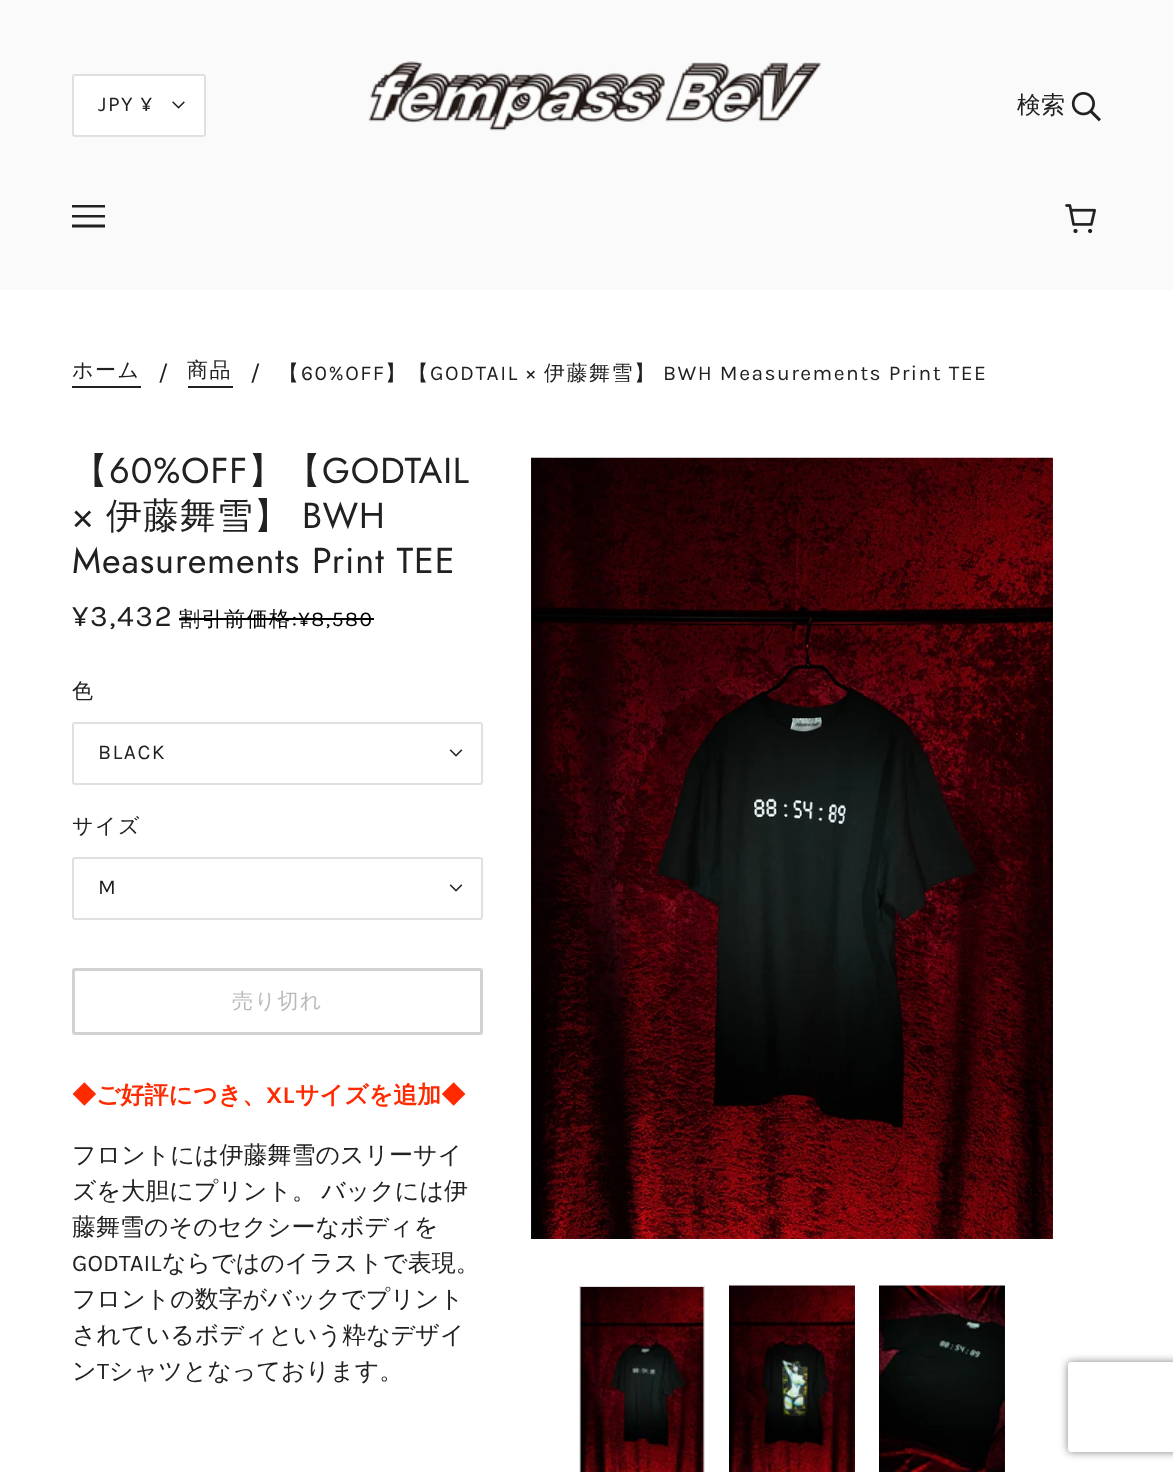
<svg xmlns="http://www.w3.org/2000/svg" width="1173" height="1472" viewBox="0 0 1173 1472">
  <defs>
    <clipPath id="clip1"><path d="M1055 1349H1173V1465H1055ZM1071 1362H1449C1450.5 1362 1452 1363.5 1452 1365V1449C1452 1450.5 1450.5 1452 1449 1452H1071C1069.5 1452 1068 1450.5 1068 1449V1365C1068 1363.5 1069.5 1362 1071 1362Z" clip-rule="evenodd"/></clipPath>
  </defs>
  <rect width="100%" height="100%" fill="rgb(255,255,255)"/>
  <rect x="0" y="0" width="1173" height="290" fill="rgb(250,250,250)"/>
  <rect x="73" y="75" width="132" height="61" rx="2" fill="rgb(255,255,255)" stroke="rgb(224,224,224)" stroke-width="2"/>
  <text x="98" y="111" font-family="Karla" font-size="21" letter-spacing="1.5" fill="rgb(33,33,33)">JPY ¥</text>
  <image x="172" y="101" width="13" height="8" href="pic1.png"/>
  <image x="368" y="61" width="453" height="70" href="pic2.png"/>
  <text x="1017" y="113" font-family="WenQuanYi Zen Hei" font-size="24" font-weight="500" fill="rgb(33,33,33)">検索</text>
  <image x="1071" y="92" width="30" height="30" href="pic3.png"/>
  <path d="M72 207.5V205H105V207.5ZM72 217.5V215H105V217.5ZM72 227.5V224.5H105V227.5Z" fill="rgb(33,33,33)"/>
  <image x="1065" y="204" width="31" height="30" href="pic4.png"/>
  <text x="72" y="377" font-family="WenQuanYi Zen Hei" font-size="21" font-weight="500" letter-spacing="1.5" fill="rgb(33,33,33)">ホーム</text>
  <rect x="72" y="386" width="69" height="2" fill="rgb(33,33,33)"/>
  <text x="158" y="381" font-family="Karla" font-size="24" fill="rgb(33,33,33)">/</text>
  <text x="187" y="377" font-family="WenQuanYi Zen Hei" font-size="21" font-weight="500" letter-spacing="1.5" fill="rgb(33,33,33)">商品</text>
  <rect x="188" y="386" width="45" height="2" fill="rgb(33,33,33)"/>
  <text x="250" y="381" font-family="Karla" font-size="24" fill="rgb(33,33,33)">/</text>
  <text x="278" y="380" font-family="WenQuanYi Zen Hei" font-size="21" font-weight="500" letter-spacing="1.5" fill="rgb(33,33,33)">【</text>
  <text x="301" y="380" font-family="Karla" font-size="21" letter-spacing="1.5" fill="rgb(33,33,33)">60%OFF</text>
  <text x="385" y="380" font-family="WenQuanYi Zen Hei" font-size="21" font-weight="500" letter-spacing="1.5" fill="rgb(33,33,33)">】【</text>
  <text x="430" y="380" font-family="Karla" font-size="21" letter-spacing="1.5" fill="rgb(33,33,33)">GODTAIL ×</text>
  <text x="544" y="380" font-family="WenQuanYi Zen Hei" font-size="21" font-weight="500" letter-spacing="1.5" fill="rgb(33,33,33)">伊藤舞雪】</text>
  <text x="663" y="380" font-family="Karla" font-size="21" letter-spacing="1.5" fill="rgb(33,33,33)">BWH Measurements Print TEE</text>
  <text x="72" y="483" font-family="WenQuanYi Zen Hei" font-size="36" font-weight="500" letter-spacing="0.9" fill="rgb(33,33,33)">【</text>
  <text x="109" y="483" font-family="Jost" font-size="36" letter-spacing="0.9" fill="rgb(33,33,33)">60%OFF</text>
  <text x="248" y="483" font-family="WenQuanYi Zen Hei" font-size="36" font-weight="500" letter-spacing="0.9" fill="rgb(33,33,33)">】【</text>
  <g font-family="Jost" font-size="36" letter-spacing="0.9" fill="rgb(33,33,33)">
    <text x="322" y="483">GODTAIL</text>
    <text x="72" y="528">×</text>
  </g>
  <text x="106" y="528" font-family="WenQuanYi Zen Hei" font-size="36" font-weight="500" letter-spacing="0.9" fill="rgb(33,33,33)">伊藤舞雪】</text>
  <g font-family="Jost" font-size="36" letter-spacing="0.9" fill="rgb(33,33,33)">
    <text x="302" y="528">BWH</text>
    <text x="72" y="573">Measurements Print TEE</text>
  </g>
  <image x="531" y="457" width="522" height="782" href="pic5.png"/>
  <rect x="580" y="1287" width="124" height="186" fill="none" stroke="rgb(224,224,224)" stroke-width="2"/>
  <image x="580" y="1287" width="124" height="185" href="pic6.png"/>
  <image x="729" y="1285" width="126" height="187" href="pic7.png"/>
  <image x="879" y="1285" width="126" height="187" href="pic8.png"/>
  <text x="72" y="626" font-family="Karla" font-size="30" letter-spacing="1.5" fill="rgb(33,33,33)">¥3,432</text>
  <text x="179" y="626" font-family="WenQuanYi Zen Hei" font-size="21" font-weight="500" letter-spacing="1.5" fill="rgb(0,0,0)">割引前価格</text>
  <rect x="179" y="618" width="195" height="2" fill="rgb(0,0,0)"/>
  <text x="292" y="626" font-family="Karla" font-size="21" letter-spacing="1.5" fill="rgb(0,0,0)">:¥8,580</text>
  <text x="72" y="698" font-family="WenQuanYi Zen Hei" font-size="21" font-weight="500" letter-spacing="1.5" fill="rgb(33,33,33)">色</text>
  <rect x="73" y="723" width="409" height="61" rx="2" fill="none" stroke="rgb(224,224,224)" stroke-width="2"/>
  <text x="98" y="759" font-family="Karla" font-size="21" letter-spacing="1.5" fill="rgb(33,33,33)">BLACK</text>
  <image x="449" y="749" width="14" height="8" href="pic9.png"/>
  <text x="72" y="833" font-family="WenQuanYi Zen Hei" font-size="21" font-weight="500" letter-spacing="1.5" fill="rgb(33,33,33)">サイズ</text>
  <rect x="73" y="858" width="409" height="61" rx="2" fill="none" stroke="rgb(224,224,224)" stroke-width="2"/>
  <text x="98" y="894" font-family="Karla" font-size="21" letter-spacing="1.5" fill="rgb(33,33,33)">M</text>
  <image x="449" y="884" width="14" height="8" href="pic9.png"/>
  <rect x="73.5" y="969.5" width="408" height="64" rx="1.5" fill="none" stroke="rgb(210,210,210)" stroke-width="3"/>
  <text x="232" y="1008" font-family="WenQuanYi Zen Hei" font-size="21" font-weight="500" letter-spacing="1.5" fill="rgb(185,185,185)">売り切れ</text>
  <text x="72" y="1103" font-family="WenQuanYi Zen Hei" font-size="24" font-weight="bold" fill="rgb(255,42,0)">◆ご好評につき、</text>
  <text x="266" y="1103" font-family="Karla" font-size="24" font-weight="bold" fill="rgb(255,42,0)">XL</text>
  <text x="295" y="1103" font-family="WenQuanYi Zen Hei" font-size="24" font-weight="bold" fill="rgb(255,42,0)">サイズを追加◆</text>
  <g font-family="WenQuanYi Zen Hei" font-size="24" font-weight="500" fill="rgb(33,33,33)">
    <text>
      <tspan x="72" y="1163">フロントには伊藤舞雪のスリーサイ</tspan>
      <tspan x="72" y="1199" word-spacing="-2">ズを大胆にプリント。 バックには伊</tspan>
      <tspan x="72" y="1235">藤舞雪のそのセクシーなボディを</tspan>
    </text>
  </g>
  <text x="72" y="1271" font-family="Karla" font-size="24" fill="rgb(33,33,33)">GODTAIL</text>
  <g font-family="WenQuanYi Zen Hei" font-size="24" font-weight="500" fill="rgb(33,33,33)">
    <text x="162" y="1271">ならではのイラストで表現。</text>
    <text>
      <tspan x="72" y="1307">フロントの数字がバックでプリント</tspan>
      <tspan x="72" y="1343">されているボディという粋なデザイ</tspan>
      <tspan x="72" y="1379">ン</tspan>
    </text>
  </g>
  <text x="97" y="1379" font-family="Karla" font-size="24" fill="rgb(33,33,33)">T</text>
  <text x="109" y="1379" font-family="WenQuanYi Zen Hei" font-size="24" font-weight="500" fill="rgb(33,33,33)">シャツとなっております。</text>
  <g clip-path="url(#clip1)">
    <rect x="1068" y="1362" width="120" height="90" rx="3" fill="rgb(128,128,128)" filter="blur(4px)"/>
  </g>
</svg>
